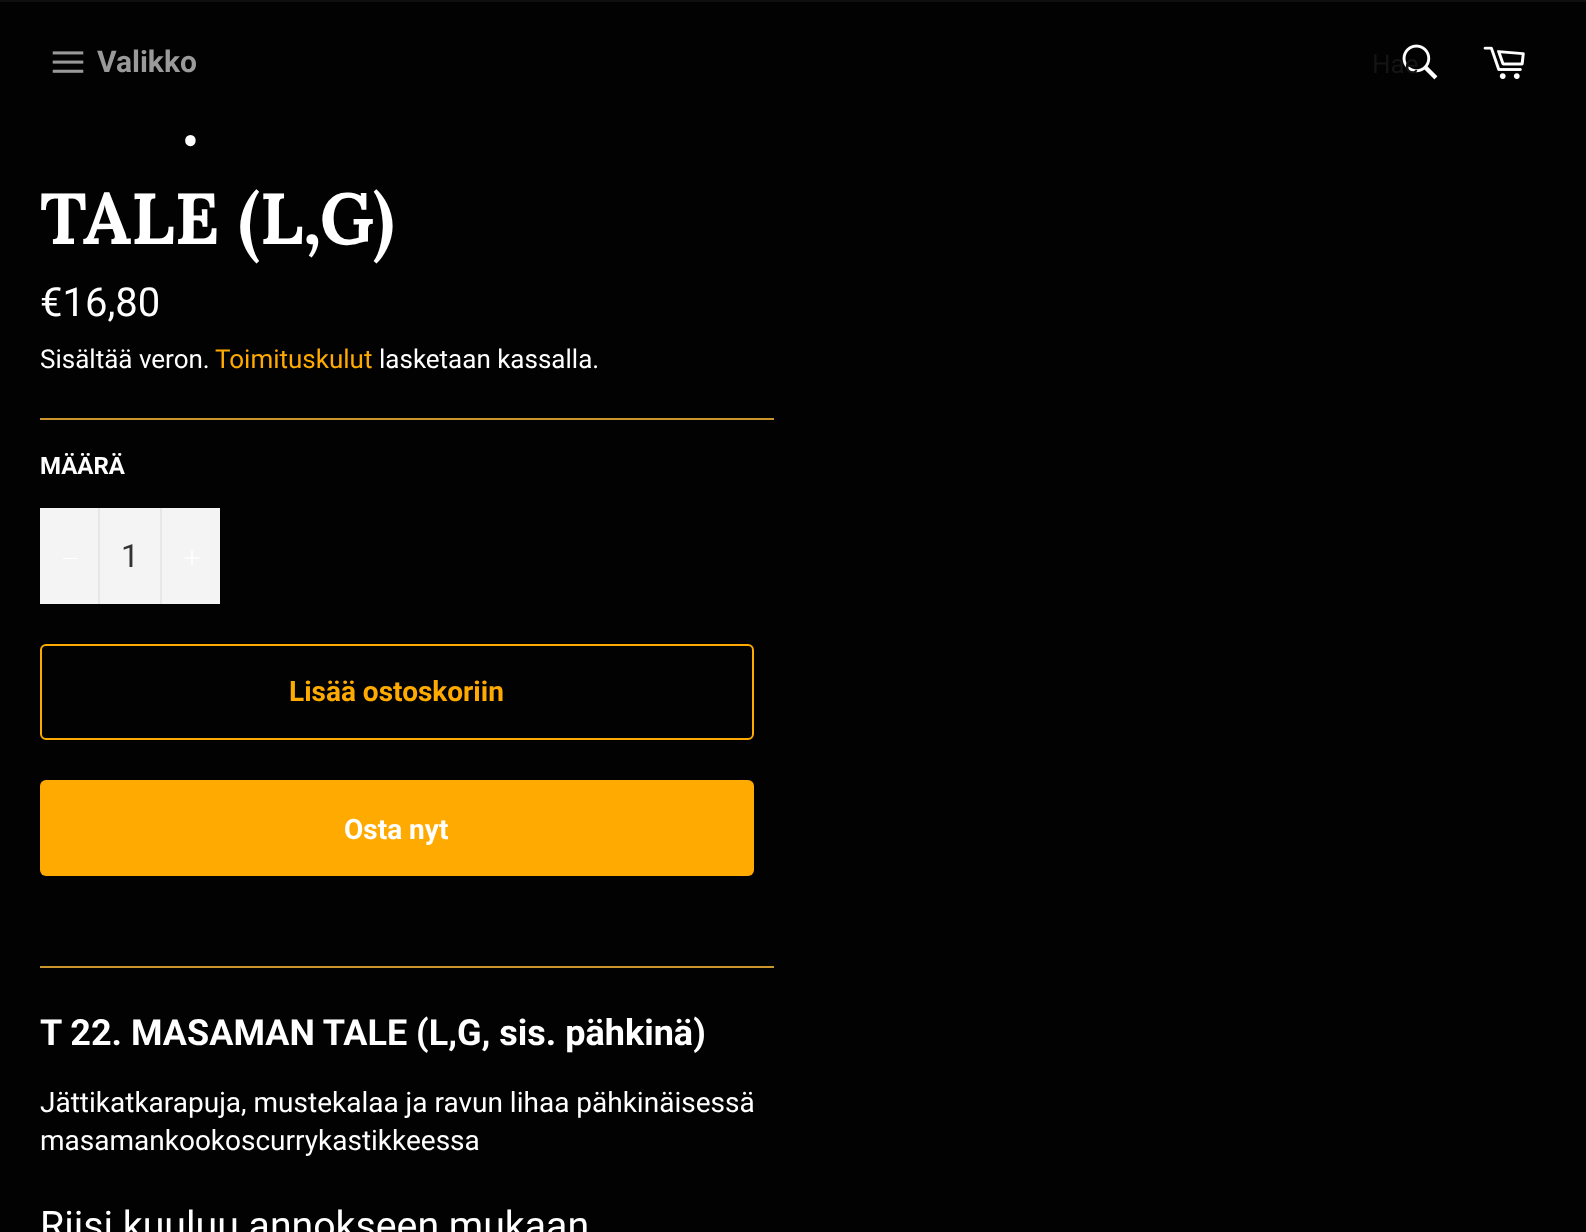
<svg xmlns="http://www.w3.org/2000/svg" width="1586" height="1232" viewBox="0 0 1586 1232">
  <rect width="100%" height="100%" fill="rgb(2,2,2)"/>
  <rect x="0" y="0" width="1586" height="2" fill="rgb(15,15,15)"/>
  <image x="52" y="51" width="32" height="22" href="pic1.png"/>
  <text x="97" y="72" font-family="Roboto" font-size="30" font-weight="bold" fill="rgb(154,154,154)">Valikko</text>
  <image x="1402" y="44" width="36" height="36" href="pic2.png"/>
  <text x="1372" y="73" font-family="Roboto" font-size="26" fill="rgb(20,20,20)">Hae</text>
  <image x="1483" y="46" width="42" height="33" href="pic3.png"/>
  <g font-family="Lora" font-size="72" font-weight="bold" fill="rgb(255,255,255)">
    <text x="182" y="145">.</text>
    <text x="40" y="244">TALE (L,G)</text>
  </g>
  <text x="40" y="316" font-family="Roboto" font-size="40" fill="rgb(255,255,255)">€16,80</text>
  <text x="40" y="368" font-family="Roboto" font-size="26" fill="rgb(255,255,255)">Sisältää veron.</text>
  <text x="215" y="368" font-family="Roboto" font-size="26" fill="rgb(255,170,0)">Toimituskulut</text>
  <text x="379" y="368" font-family="Roboto" font-size="26" fill="rgb(255,255,255)">lasketaan kassalla.</text>
  <rect x="40" y="418" width="734" height="2" fill="rgb(202,149,42)"/>
  <text x="40" y="474" font-family="Roboto" font-size="24" font-weight="bold" fill="rgb(255,255,255)">MÄÄRÄ</text>
  <rect x="40" y="508" width="180" height="96" fill="rgb(244,244,244)"/>
  <rect x="98" y="508" width="2" height="96" fill="rgb(231,231,231)"/>
  <rect x="63" y="558" width="15" height="1" fill="rgb(255,255,255)"/>
  <text x="121" y="567" font-family="Roboto" font-size="32" fill="rgb(51,51,51)">1</text>
  <rect x="160" y="508" width="2" height="96" fill="rgb(231,231,231)"/>
  <image x="184" y="550" width="16" height="16" href="pic4.png"/>
  <rect x="41" y="645" width="712" height="94" rx="5" fill="none" stroke="rgb(255,170,0)" stroke-width="2"/>
  <text x="289" y="701" font-family="Roboto" font-size="28" font-weight="bold" fill="rgb(255,170,0)">Lisää ostoskoriin</text>
  <rect x="40" y="780" width="714" height="96" rx="6" fill="rgb(255,170,0)"/>
  <text x="344" y="839" font-family="Roboto" font-size="28" font-weight="bold" fill="rgb(255,255,255)">Osta nyt</text>
  <rect x="40" y="966" width="734" height="2" fill="rgb(202,149,42)"/>
  <text x="40" y="1045" font-family="Roboto" font-size="36" font-weight="bold" fill="rgb(255,255,255)">T 22. MASAMAN TALE (L,G, sis. pähkinä)</text>
  <g font-family="Roboto" font-size="28" fill="rgb(255,255,255)">
    <text>
      <tspan x="40" y="1112">Jättikatkarapuja, mustekalaa ja ravun lihaa pähkinäisessä</tspan>
      <tspan x="40" y="1150">masamankookoscurrykastikkeessa</tspan>
    </text>
  </g>
  <text x="40" y="1239" font-family="Roboto" font-size="39.25" fill="rgb(255,255,255)">Riisi kuuluu annokseen mukaan</text>
</svg>
